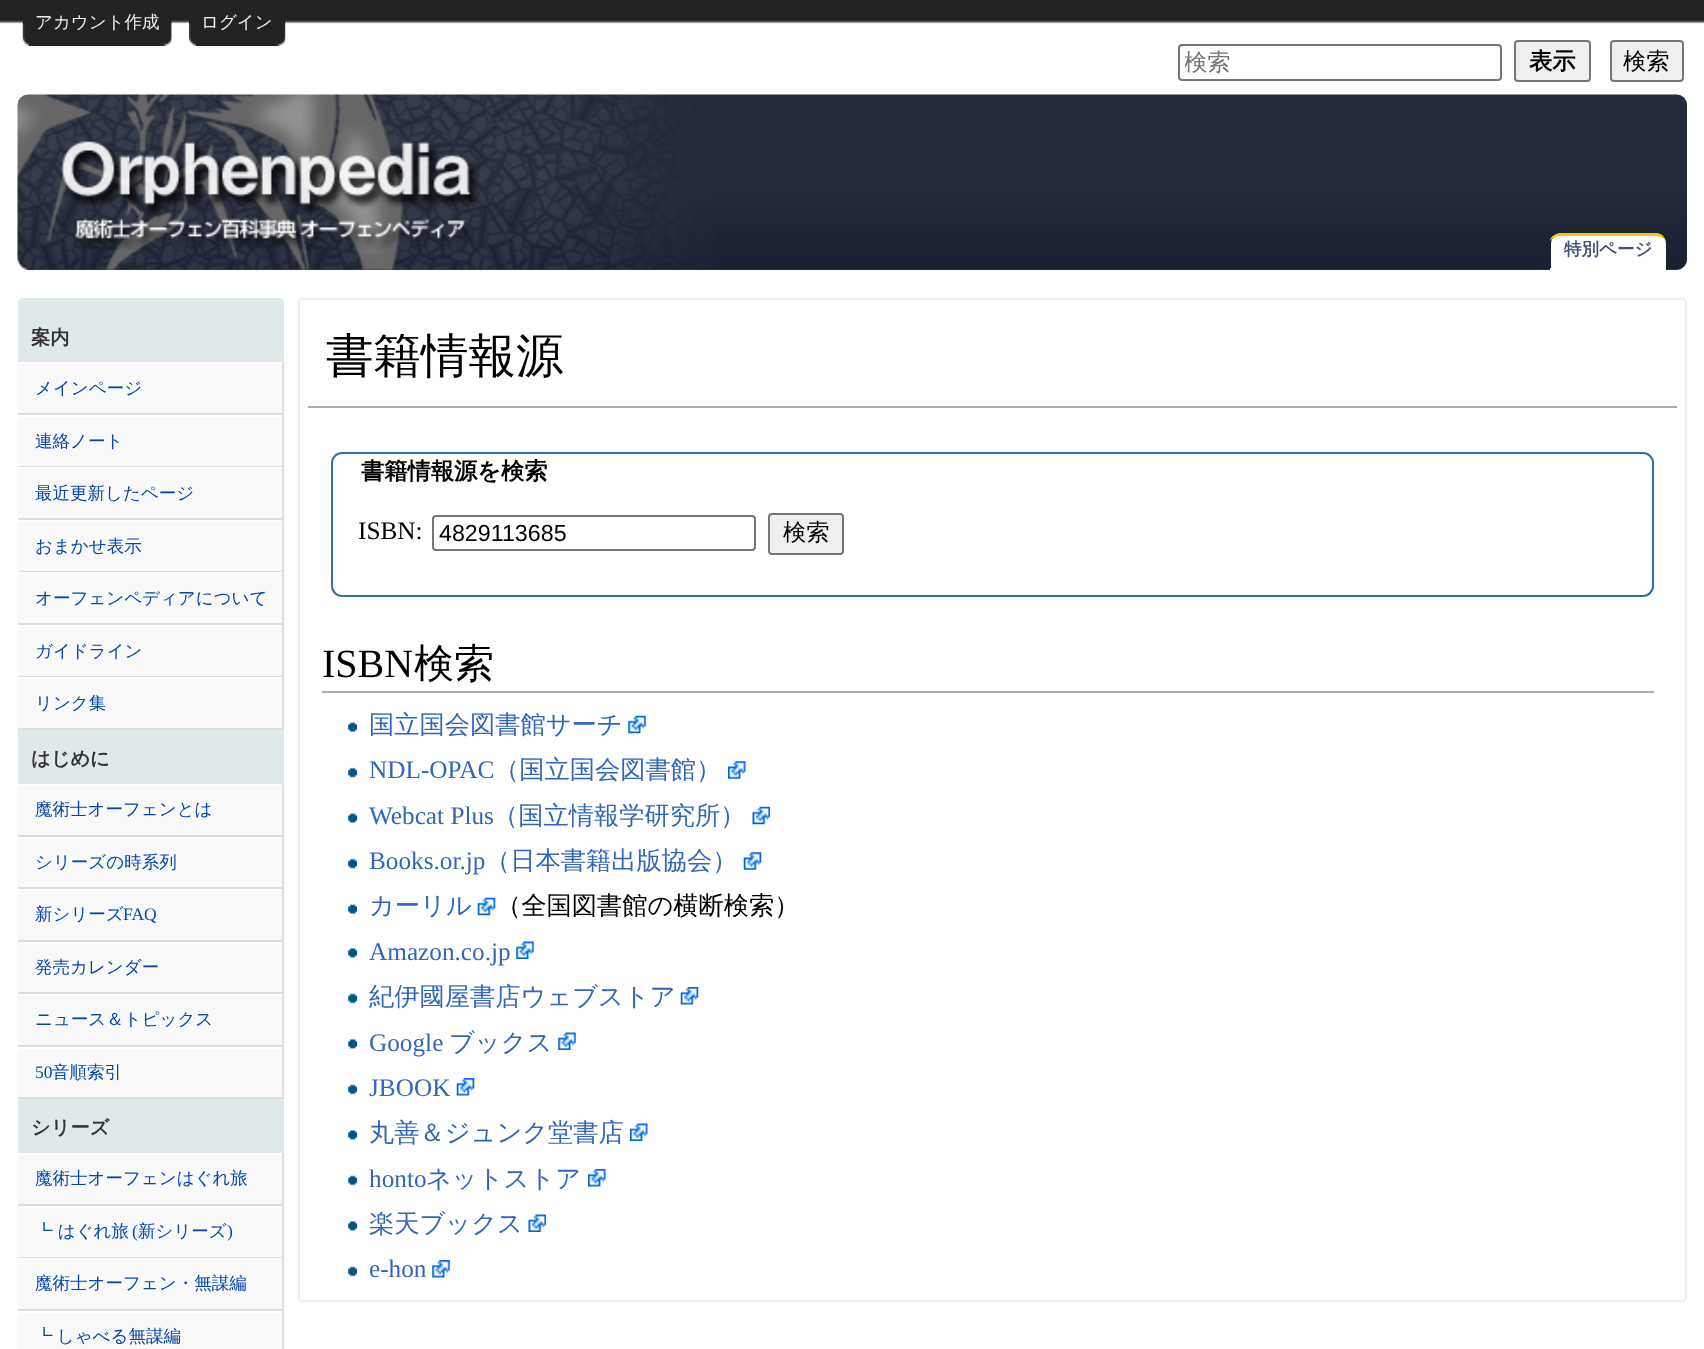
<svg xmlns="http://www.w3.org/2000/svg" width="1704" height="1349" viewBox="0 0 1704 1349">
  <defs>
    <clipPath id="clip1"><rect x="1185" y="47" width="287" height="30"/></clipPath>
  </defs>
  <rect width="100%" height="100%" fill="rgb(255,255,255)"/>
  <image x="0" y="0" width="1704" height="24" href="pic1.png"/>
  <image x="22" y="20" width="7" height="26" href="pic2.png"/>
  <rect x="29" y="20" width="136" height="26" fill="rgb(34,34,34)"/>
  <text x="35" y="28" font-family="WenQuanYi Zen Hei" font-size="17.5" font-weight="500" fill="rgb(238,238,238)">アカウント作成</text>
  <image x="162" y="20" width="10" height="26" href="pic3.png"/>
  <image x="189" y="20" width="7" height="26" href="pic4.png"/>
  <rect x="196" y="20" width="83" height="26" fill="rgb(34,34,34)"/>
  <text x="201" y="28" font-family="WenQuanYi Zen Hei" font-size="17.5" font-weight="500" fill="rgb(238,238,238)">ログイン</text>
  <image x="276" y="20" width="10" height="26" href="pic5.png"/>
  <rect x="1179" y="45" width="322" height="35" rx="3" fill="none" stroke="rgb(118,118,118)" stroke-width="2"/>
  <g clip-path="url(#clip1)">
    <text x="1184" y="70" font-family="WenQuanYi Zen Hei" font-size="23.25" font-weight="500" fill="rgb(117,117,117)">検索</text>
  </g>
  <rect x="1515" y="41" width="75" height="40" rx="3" fill="rgb(239,239,239)" stroke="rgb(118,118,118)" stroke-width="2"/>
  <text x="1529" y="69" font-family="WenQuanYi Zen Hei" font-size="23.25" font-weight="bold" fill="rgb(0,0,0)">表示</text>
  <rect x="1611" y="41" width="72" height="40" rx="3" fill="rgb(239,239,239)" stroke="rgb(118,118,118)" stroke-width="2"/>
  <text x="1623" y="69" font-family="WenQuanYi Zen Hei" font-size="23.25" font-weight="500" fill="rgb(0,0,0)">検索</text>
  <rect x="18" y="95" width="1669" height="175" rx="11" fill="rgb(98,50,79)"/>
  <image x="17" y="94" width="1670" height="176" href="pic6.png"/>
  <image x="61" y="141" width="419" height="109" href="pic7.png"/>
  <path d="M1562 233H1655C1661 233 1666 238 1666 244V270H1551V244C1551 238 1556 233 1562 233Z" fill="rgb(255,255,255)"/>
  <path d="M1561 233H1656C1661 233 1666 237 1666 243C1666 239 1661 236 1656 236H1561C1556 236 1552 238 1550 241C1550 236 1557 233 1561 233Z" fill="rgb(255,198,0)"/>
  <rect x="1550" y="268" width="1" height="2" fill="rgb(255,255,255)"/>
  <text x="1564" y="255" font-family="WenQuanYi Zen Hei" font-size="17.5" font-weight="bold" fill="rgb(69,83,114)">特別ページ</text>
  <rect x="18" y="298" width="266" height="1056" rx="5" fill="rgb(224,233,233)"/>
  <text x="31" y="344" font-family="WenQuanYi Zen Hei" font-size="19.25" font-weight="bold" fill="rgb(51,51,51)">案内</text>
  <rect x="18" y="364" width="264" height="49" fill="rgb(249,249,249)"/>
  <rect x="18" y="362" width="266" height="2" fill="rgb(255,255,255)"/>
  <rect x="282" y="362" width="2" height="53" fill="rgb(221,221,221)"/>
  <rect x="18" y="413" width="266" height="2" fill="rgb(221,221,221)"/>
  <text x="35" y="394" font-family="WenQuanYi Zen Hei" font-size="17.5" font-weight="500" fill="rgb(6,69,173)">メインページ</text>
  <rect x="18" y="417" width="264" height="49" fill="rgb(249,249,249)"/>
  <rect x="18" y="415" width="266" height="2" fill="rgb(255,255,255)"/>
  <rect x="282" y="415" width="2" height="52" fill="rgb(221,221,221)"/>
  <rect x="18" y="466" width="266" height="1" fill="rgb(221,221,221)"/>
  <text x="35" y="447" font-family="WenQuanYi Zen Hei" font-size="17.5" font-weight="500" fill="rgb(6,69,173)">連絡ノート</text>
  <rect x="18" y="469" width="264" height="49" fill="rgb(249,249,249)"/>
  <rect x="18" y="467" width="266" height="2" fill="rgb(255,255,255)"/>
  <rect x="282" y="467" width="2" height="53" fill="rgb(221,221,221)"/>
  <rect x="18" y="518" width="266" height="2" fill="rgb(221,221,221)"/>
  <text x="35" y="499" font-family="WenQuanYi Zen Hei" font-size="17.5" font-weight="500" fill="rgb(6,69,173)">最近更新したページ</text>
  <rect x="18" y="522" width="264" height="49" fill="rgb(249,249,249)"/>
  <rect x="18" y="520" width="266" height="2" fill="rgb(255,255,255)"/>
  <rect x="282" y="520" width="2" height="52" fill="rgb(221,221,221)"/>
  <rect x="18" y="571" width="266" height="1" fill="rgb(221,221,221)"/>
  <text x="35" y="552" font-family="WenQuanYi Zen Hei" font-size="17.5" font-weight="500" fill="rgb(6,69,173)">おまかせ表示</text>
  <rect x="18" y="574" width="264" height="49" fill="rgb(249,249,249)"/>
  <rect x="18" y="572" width="266" height="2" fill="rgb(255,255,255)"/>
  <rect x="282" y="572" width="2" height="53" fill="rgb(221,221,221)"/>
  <rect x="18" y="623" width="266" height="2" fill="rgb(221,221,221)"/>
  <text x="35" y="604" font-family="WenQuanYi Zen Hei" font-size="17.5" font-weight="500" fill="rgb(6,69,173)">オーフェンペディアについて</text>
  <rect x="18" y="627" width="264" height="49" fill="rgb(249,249,249)"/>
  <rect x="18" y="625" width="266" height="2" fill="rgb(255,255,255)"/>
  <rect x="282" y="625" width="2" height="52" fill="rgb(221,221,221)"/>
  <rect x="18" y="676" width="266" height="1" fill="rgb(221,221,221)"/>
  <text x="35" y="657" font-family="WenQuanYi Zen Hei" font-size="17.5" font-weight="500" fill="rgb(6,69,173)">ガイドライン</text>
  <rect x="18" y="679" width="264" height="49" fill="rgb(249,249,249)"/>
  <rect x="18" y="677" width="266" height="2" fill="rgb(255,255,255)"/>
  <rect x="282" y="677" width="2" height="53" fill="rgb(221,221,221)"/>
  <rect x="18" y="728" width="266" height="2" fill="rgb(221,221,221)"/>
  <text x="35" y="709" font-family="WenQuanYi Zen Hei" font-size="17.5" font-weight="500" fill="rgb(6,69,173)">リンク集</text>
  <text x="31" y="765" font-family="WenQuanYi Zen Hei" font-size="19.25" font-weight="bold" fill="rgb(51,51,51)">はじめに</text>
  <rect x="18" y="786" width="264" height="49" fill="rgb(249,249,249)"/>
  <rect x="18" y="784" width="266" height="2" fill="rgb(255,255,255)"/>
  <rect x="282" y="784" width="2" height="53" fill="rgb(221,221,221)"/>
  <rect x="18" y="835" width="266" height="2" fill="rgb(221,221,221)"/>
  <text x="35" y="815" font-family="WenQuanYi Zen Hei" font-size="17.5" font-weight="500" fill="rgb(6,69,173)">魔術士オーフェンとは</text>
  <rect x="18" y="839" width="264" height="48" fill="rgb(249,249,249)"/>
  <rect x="18" y="837" width="266" height="2" fill="rgb(255,255,255)"/>
  <rect x="282" y="837" width="2" height="52" fill="rgb(221,221,221)"/>
  <rect x="18" y="887" width="266" height="2" fill="rgb(221,221,221)"/>
  <text x="35" y="868" font-family="WenQuanYi Zen Hei" font-size="17.5" font-weight="500" fill="rgb(6,69,173)">シリーズの時系列</text>
  <rect x="18" y="891" width="264" height="49" fill="rgb(249,249,249)"/>
  <rect x="18" y="889" width="266" height="2" fill="rgb(255,255,255)"/>
  <rect x="282" y="889" width="2" height="53" fill="rgb(221,221,221)"/>
  <rect x="18" y="940" width="266" height="2" fill="rgb(221,221,221)"/>
  <text x="35" y="920" font-family="WenQuanYi Zen Hei" font-size="17.5" font-weight="500" fill="rgb(6,69,173)">新シリーズ</text>
  <text x="123" y="920" font-family="Liberation Serif" font-size="17.5" fill="rgb(6,69,173)">FAQ</text>
  <rect x="18" y="944" width="264" height="48" fill="rgb(249,249,249)"/>
  <rect x="18" y="942" width="266" height="2" fill="rgb(255,255,255)"/>
  <rect x="282" y="942" width="2" height="52" fill="rgb(221,221,221)"/>
  <rect x="18" y="992" width="266" height="2" fill="rgb(221,221,221)"/>
  <text x="35" y="973" font-family="WenQuanYi Zen Hei" font-size="17.5" font-weight="500" fill="rgb(6,69,173)">発売カレンダー</text>
  <rect x="18" y="996" width="264" height="49" fill="rgb(249,249,249)"/>
  <rect x="18" y="994" width="266" height="2" fill="rgb(255,255,255)"/>
  <rect x="282" y="994" width="2" height="53" fill="rgb(221,221,221)"/>
  <rect x="18" y="1045" width="266" height="2" fill="rgb(221,221,221)"/>
  <text x="35" y="1025" font-family="WenQuanYi Zen Hei" font-size="17.5" font-weight="500" fill="rgb(6,69,173)">ニュース＆トピックス</text>
  <rect x="18" y="1049" width="264" height="48" fill="rgb(249,249,249)"/>
  <rect x="18" y="1047" width="266" height="2" fill="rgb(255,255,255)"/>
  <rect x="282" y="1047" width="2" height="52" fill="rgb(221,221,221)"/>
  <rect x="18" y="1097" width="266" height="2" fill="rgb(221,221,221)"/>
  <text x="35" y="1078" font-family="Liberation Serif" font-size="17.5" fill="rgb(6,69,173)">50</text>
  <text x="52" y="1078" font-family="WenQuanYi Zen Hei" font-size="17.5" font-weight="500" fill="rgb(6,69,173)">音順索引</text>
  <text x="31" y="1134" font-family="WenQuanYi Zen Hei" font-size="19.25" font-weight="bold" fill="rgb(51,51,51)">シリーズ</text>
  <rect x="18" y="1155" width="264" height="49" fill="rgb(249,249,249)"/>
  <rect x="18" y="1153" width="266" height="2" fill="rgb(255,255,255)"/>
  <rect x="282" y="1153" width="2" height="53" fill="rgb(221,221,221)"/>
  <rect x="18" y="1204" width="266" height="2" fill="rgb(221,221,221)"/>
  <text x="35" y="1184" font-family="WenQuanYi Zen Hei" font-size="17.5" font-weight="500" fill="rgb(6,69,173)">魔術士オーフェンはぐれ旅</text>
  <rect x="18" y="1208" width="264" height="49" fill="rgb(249,249,249)"/>
  <rect x="18" y="1206" width="266" height="2" fill="rgb(255,255,255)"/>
  <rect x="282" y="1206" width="2" height="52" fill="rgb(221,221,221)"/>
  <rect x="18" y="1257" width="266" height="1" fill="rgb(221,221,221)"/>
  <text x="35" y="1237" font-family="WenQuanYi Zen Hei" font-size="17.5" font-weight="500" fill="rgb(6,69,173)">┗ はぐれ旅</text>
  <text x="132" y="1237" font-family="Liberation Serif" font-size="17.5" fill="rgb(6,69,173)">(</text>
  <text x="138" y="1237" font-family="WenQuanYi Zen Hei" font-size="17.5" font-weight="500" fill="rgb(6,69,173)">新シリーズ</text>
  <text x="227" y="1237" font-family="Liberation Serif" font-size="17.5" fill="rgb(6,69,173)">)</text>
  <rect x="18" y="1260" width="264" height="49" fill="rgb(249,249,249)"/>
  <rect x="18" y="1258" width="266" height="2" fill="rgb(255,255,255)"/>
  <rect x="282" y="1258" width="2" height="53" fill="rgb(221,221,221)"/>
  <rect x="18" y="1309" width="266" height="2" fill="rgb(221,221,221)"/>
  <text x="35" y="1289" font-family="WenQuanYi Zen Hei" font-size="17.5" font-weight="500" fill="rgb(6,69,173)">魔術士オーフェン・無謀編</text>
  <rect x="18" y="1313" width="264" height="36" fill="rgb(249,249,249)"/>
  <rect x="18" y="1311" width="266" height="2" fill="rgb(255,255,255)"/>
  <rect x="282" y="1311" width="2" height="38" fill="rgb(221,221,221)"/>
  <text x="35" y="1342" word-spacing="-1" font-family="WenQuanYi Zen Hei" font-size="17.5" font-weight="500" fill="rgb(6,69,173)">┗ しゃべる無謀編</text>
  <rect x="299" y="299" width="1387" height="1002" rx="4" fill="none" stroke="rgb(238,238,238)" stroke-width="2"/>
  <rect x="308" y="406" width="1369" height="2" fill="rgb(170,170,170)"/>
  <text x="326" y="372" font-family="WenQuanYi Zen Hei" font-size="47.5" font-weight="500" fill="rgb(0,0,0)">書籍情報源</text>
  <rect x="332" y="453" width="1321" height="143" rx="10" fill="none" stroke="rgb(47,111,171)" stroke-width="2"/>
  <text x="361" y="479" font-family="WenQuanYi Zen Hei" font-size="23.25" font-weight="bold" fill="rgb(0,0,0)">書籍情報源を検索</text>
  <text x="358" y="539" font-family="Liberation Serif" font-size="25.25" fill="rgb(0,0,0)">ISBN:</text>
  <rect x="433" y="516" width="322" height="34" rx="3" fill="none" stroke="rgb(118,118,118)" stroke-width="2"/>
  <text x="439" y="541" font-family="Liberation Sans" font-size="23.25" fill="rgb(0,0,0)">4829113685</text>
  <rect x="769" y="514" width="74" height="40" rx="3" fill="rgb(239,239,239)" stroke="rgb(118,118,118)" stroke-width="2"/>
  <text x="783" y="540" font-family="WenQuanYi Zen Hei" font-size="23.25" font-weight="500" fill="rgb(0,0,0)">検索</text>
  <rect x="322" y="691" width="1332" height="2" fill="rgb(170,170,170)"/>
  <text x="322" y="677" font-family="Liberation Serif" font-size="40" fill="rgb(0,0,0)">ISBN</text>
  <text x="414" y="677" font-family="WenQuanYi Zen Hei" font-size="40" font-weight="500" fill="rgb(0,0,0)">検索</text>
  <image x="348" y="722" width="9" height="10" href="pic8.png"/>
  <text x="369" y="733" font-family="WenQuanYi Zen Hei" font-size="25.25" font-weight="500" fill="rgb(51,102,187)">国立国会図書館サーチ</text>
  <image x="628" y="715" width="18" height="19" href="pic9.png"/>
  <image x="348" y="767" width="9" height="11" href="pic10.png"/>
  <text x="369" y="778" font-family="Liberation Serif" font-size="25.25" fill="rgb(51,102,187)">NDL-OPAC</text>
  <text x="494" y="778" font-family="WenQuanYi Zen Hei" font-size="25.25" font-weight="500" fill="rgb(51,102,187)">（国立国会図書館）</text>
  <image x="728" y="761" width="18" height="18" href="pic11.png"/>
  <image x="348" y="813" width="9" height="10" href="pic8.png"/>
  <text x="369" y="824" font-family="Liberation Serif" font-size="25.25" fill="rgb(51,102,187)">Webcat Plus</text>
  <text x="493" y="824" font-family="WenQuanYi Zen Hei" font-size="25.25" font-weight="500" fill="rgb(51,102,187)">（国立情報学研究所）</text>
  <image x="752" y="806" width="18" height="19" href="pic12.png"/>
  <image x="348" y="858" width="9" height="11" href="pic10.png"/>
  <text x="369" y="869" font-family="Liberation Serif" font-size="25.25" fill="rgb(51,102,187)">Books.or.jp</text>
  <text x="485" y="869" font-family="WenQuanYi Zen Hei" font-size="25.25" font-weight="500" fill="rgb(51,102,187)">（日本書籍出版協会）</text>
  <image x="743" y="852" width="19" height="18" href="pic13.png"/>
  <image x="348" y="904" width="9" height="10" href="pic8.png"/>
  <text x="369" y="914" font-family="WenQuanYi Zen Hei" font-size="25.25" font-weight="500" fill="rgb(51,102,187)">カーリル</text>
  <image x="477" y="897" width="19" height="19" href="pic14.png"/>
  <text x="496" y="914" font-family="WenQuanYi Zen Hei" font-size="25.25" font-weight="500" fill="rgb(0,0,0)">（全国図書館の横断検索）</text>
  <image x="348" y="948" width="9" height="10" href="pic15.png"/>
  <text x="369" y="960" font-family="Liberation Serif" font-size="25.25" fill="rgb(51,102,187)">Amazon.co.jp</text>
  <image x="516" y="941" width="18" height="18" href="pic16.png"/>
  <image x="348" y="993" width="9" height="11" href="pic17.png"/>
  <text x="369" y="1005" font-family="WenQuanYi Zen Hei" font-size="25.25" font-weight="500" fill="rgb(51,102,187)">紀伊國屋書店ウェブストア</text>
  <image x="680" y="987" width="19" height="18" href="pic18.png"/>
  <image x="348" y="1039" width="9" height="10" href="pic15.png"/>
  <text x="369" y="1051" font-family="Liberation Serif" font-size="25.25" fill="rgb(51,102,187)">Google</text>
  <text x="449" y="1051" font-family="WenQuanYi Zen Hei" font-size="25.25" font-weight="500" fill="rgb(51,102,187)">ブックス</text>
  <image x="558" y="1032" width="18" height="18" href="pic16.png"/>
  <image x="348" y="1084" width="9" height="11" href="pic17.png"/>
  <text x="369" y="1096" font-family="Liberation Serif" font-size="25.25" fill="rgb(51,102,187)">JBOOK</text>
  <image x="456" y="1078" width="19" height="18" href="pic18.png"/>
  <image x="348" y="1130" width="9" height="10" href="pic15.png"/>
  <text x="369" y="1141" font-family="WenQuanYi Zen Hei" font-size="25.25" font-weight="500" fill="rgb(51,102,187)">丸善＆ジュンク堂書店</text>
  <image x="630" y="1123" width="18" height="18" href="pic19.png"/>
  <image x="348" y="1175" width="9" height="11" href="pic17.png"/>
  <text x="369" y="1187" font-family="Liberation Serif" font-size="25.25" fill="rgb(51,102,187)">honto</text>
  <text x="426" y="1187" font-family="WenQuanYi Zen Hei" font-size="25.25" font-weight="500" fill="rgb(51,102,187)">ネットストア</text>
  <image x="588" y="1169" width="18" height="18" href="pic20.png"/>
  <image x="348" y="1221" width="9" height="10" href="pic15.png"/>
  <text x="369" y="1232" font-family="WenQuanYi Zen Hei" font-size="25.25" font-weight="500" fill="rgb(51,102,187)">楽天ブックス</text>
  <image x="528" y="1214" width="18" height="18" href="pic21.png"/>
  <image x="348" y="1266" width="9" height="11" href="pic17.png"/>
  <text x="369" y="1277" font-family="Liberation Serif" font-size="25.25" fill="rgb(51,102,187)">e-hon</text>
  <image x="432" y="1260" width="18" height="18" href="pic22.png"/>
</svg>
